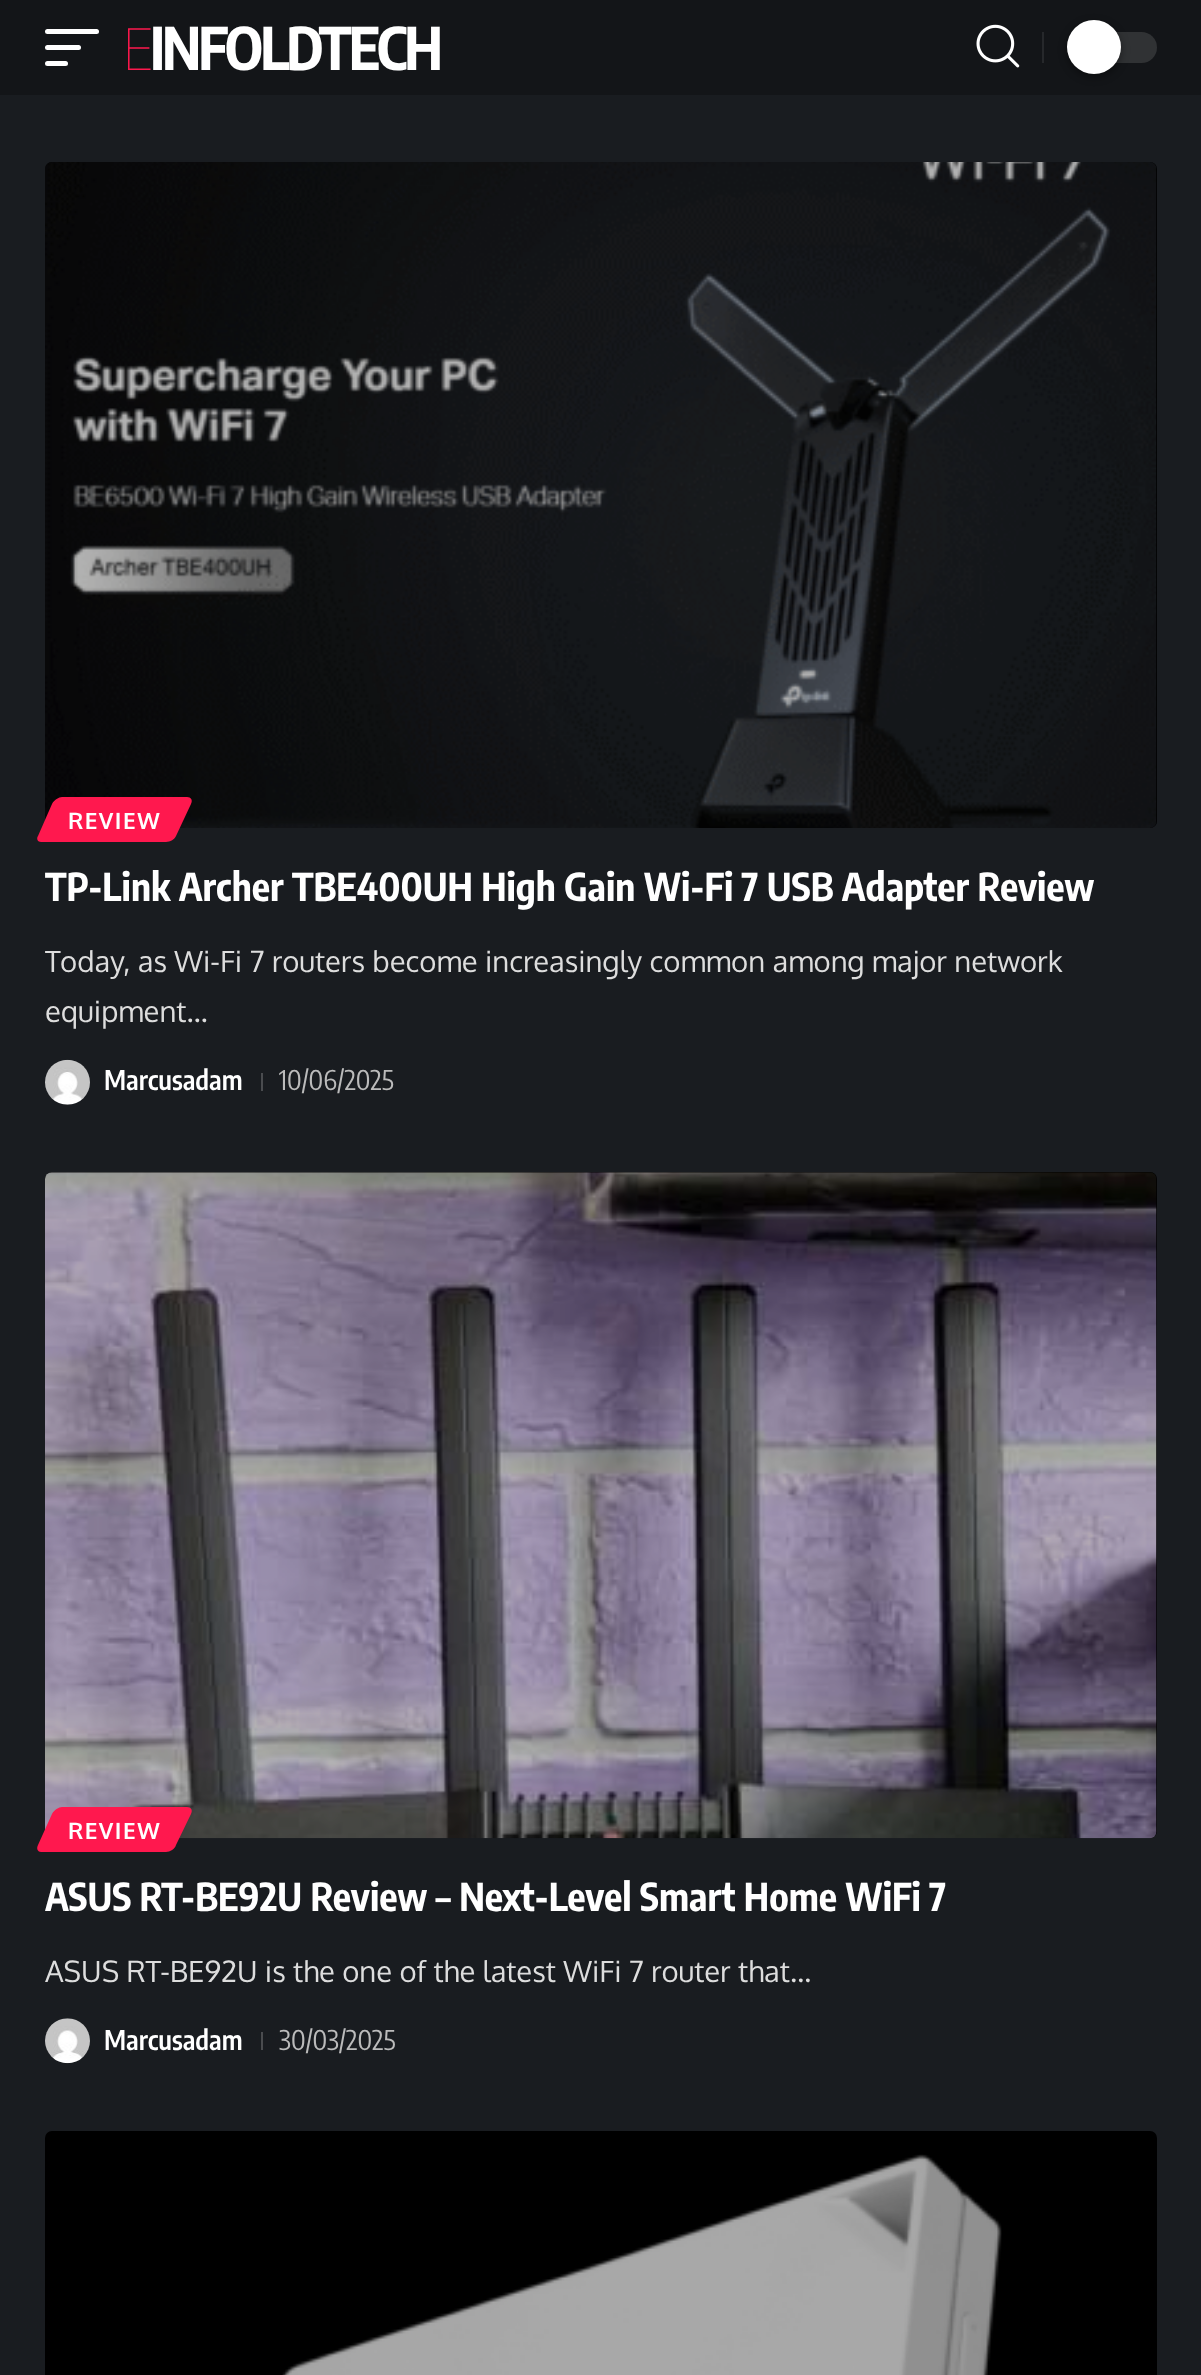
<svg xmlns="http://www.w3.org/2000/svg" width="1201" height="2375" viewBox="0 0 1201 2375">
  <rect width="100%" height="100%" fill="rgb(25,28,32)"/>
  <rect x="0" y="0" width="1201" height="95" fill="rgb(19,21,24)"/>
  <rect x="45" y="29" width="54" height="5" rx="2.5" fill="rgb(255,255,255)"/>
  <rect x="45" y="45" width="36" height="5" rx="2.5" fill="rgb(255,255,255)"/>
  <rect x="45" y="61" width="23" height="5" rx="2.5" fill="rgb(255,255,255)"/>
  <text x="122" y="70" font-family="Noto Sans" font-size="58.5" font-weight="100" letter-spacing="-3" fill="rgb(255,24,78)">E</text>
  <text x="150" y="70" font-family="Encode Sans Condensed" font-size="58.5" font-weight="bold" letter-spacing="-3" fill="rgb(255,255,255)">INFOLDTECH</text>
  <image x="976" y="24" width="44" height="44" href="pic1.png"/>
  <rect x="1042" y="32" width="2" height="31" fill="rgb(38,40,43)"/>
  <rect x="1067" y="32" width="90" height="31" rx="15.5" fill="rgb(48,50,52)"/>
  <rect x="1067" y="23" width="54" height="54" rx="27" fill="rgba(0,0,0,0.4)" filter="blur(4.5px)"/>
  <circle cx="1094" cy="47" r="27" fill="rgb(255,255,255)"/>
  <rect x="45" y="162" width="1112" height="666" rx="7" fill="rgb(0,0,0)"/>
  <image x="45" y="162" width="1112" height="666" href="pic2.png"/>
  <path d="M62 797H187C191 797 193 800 191 804L176 836C175 839 170 842 166 842H41C38 842 36 839 38 836L52 804C54 800 59 797 62 797Z" fill="rgb(255,24,78)"/>
  <text x="68" y="829" font-family="Oxygen" font-size="22.5" font-weight="bold" letter-spacing="1.5" fill="rgb(255,255,255)">REVIEW</text>
  <text x="45" y="901" font-family="Encode Sans Condensed" font-size="38.25" font-weight="bold" fill="rgb(255,255,255)">TP-Link Archer TBE400UH High Gain Wi-Fi 7 USB Adapter Review</text>
  <g font-family="Oxygen" font-size="29.25" fill="rgb(221,221,221)">
    <text>
      <tspan x="45" y="972">Today, as Wi-Fi 7 routers become increasingly common among major network</tspan>
      <tspan x="45" y="1022">equipment…</tspan>
    </text>
  </g>
  <image x="45" y="1059" width="45" height="46" href="pic3.png"/>
  <text x="104" y="1090" font-family="Encode Sans Condensed" font-size="27" font-weight="600" fill="rgb(255,255,255)">Marcusadam</text>
  <rect x="261" y="1073" width="2" height="18" fill="rgb(74,76,79)"/>
  <text x="279" y="1090" font-family="Encode Sans Condensed" font-size="27" fill="rgb(187,187,187)">10/06/2025</text>
  <rect x="45" y="1172" width="1112" height="666" rx="7" fill="rgb(0,0,0)"/>
  <image x="45" y="1172" width="1112" height="667" href="pic4.png"/>
  <path d="M62 1807H187C191 1807 193 1810 191 1814L176 1845C175 1849 170 1852 166 1852H41C38 1852 36 1849 38 1845L52 1814C54 1810 59 1807 62 1807Z" fill="rgb(255,24,78)"/>
  <text x="68" y="1839" font-family="Oxygen" font-size="22.5" font-weight="bold" letter-spacing="1.5" fill="rgb(255,255,255)">REVIEW</text>
  <text x="45" y="1911" font-family="Encode Sans Condensed" font-size="38.25" font-weight="bold" fill="rgb(255,255,255)">ASUS RT-BE92U Review – Next-Level Smart Home WiFi 7</text>
  <text x="45" y="1982" font-family="Oxygen" font-size="29.25" fill="rgb(221,221,221)">ASUS RT-BE92U is the one of the latest WiFi 7 router that…</text>
  <image x="45" y="2018" width="45" height="46" href="pic5.png"/>
  <text x="104" y="2050" font-family="Encode Sans Condensed" font-size="27" font-weight="600" fill="rgb(255,255,255)">Marcusadam</text>
  <rect x="261" y="2032" width="2" height="18" fill="rgb(74,76,79)"/>
  <text x="279" y="2050" font-family="Encode Sans Condensed" font-size="27" fill="rgb(187,187,187)">30/03/2025</text>
  <rect x="45" y="2131" width="1112" height="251" rx="7" fill="rgb(0,0,0)"/>
  <image x="282" y="2154" width="720" height="221" href="pic6.png"/>
</svg>
